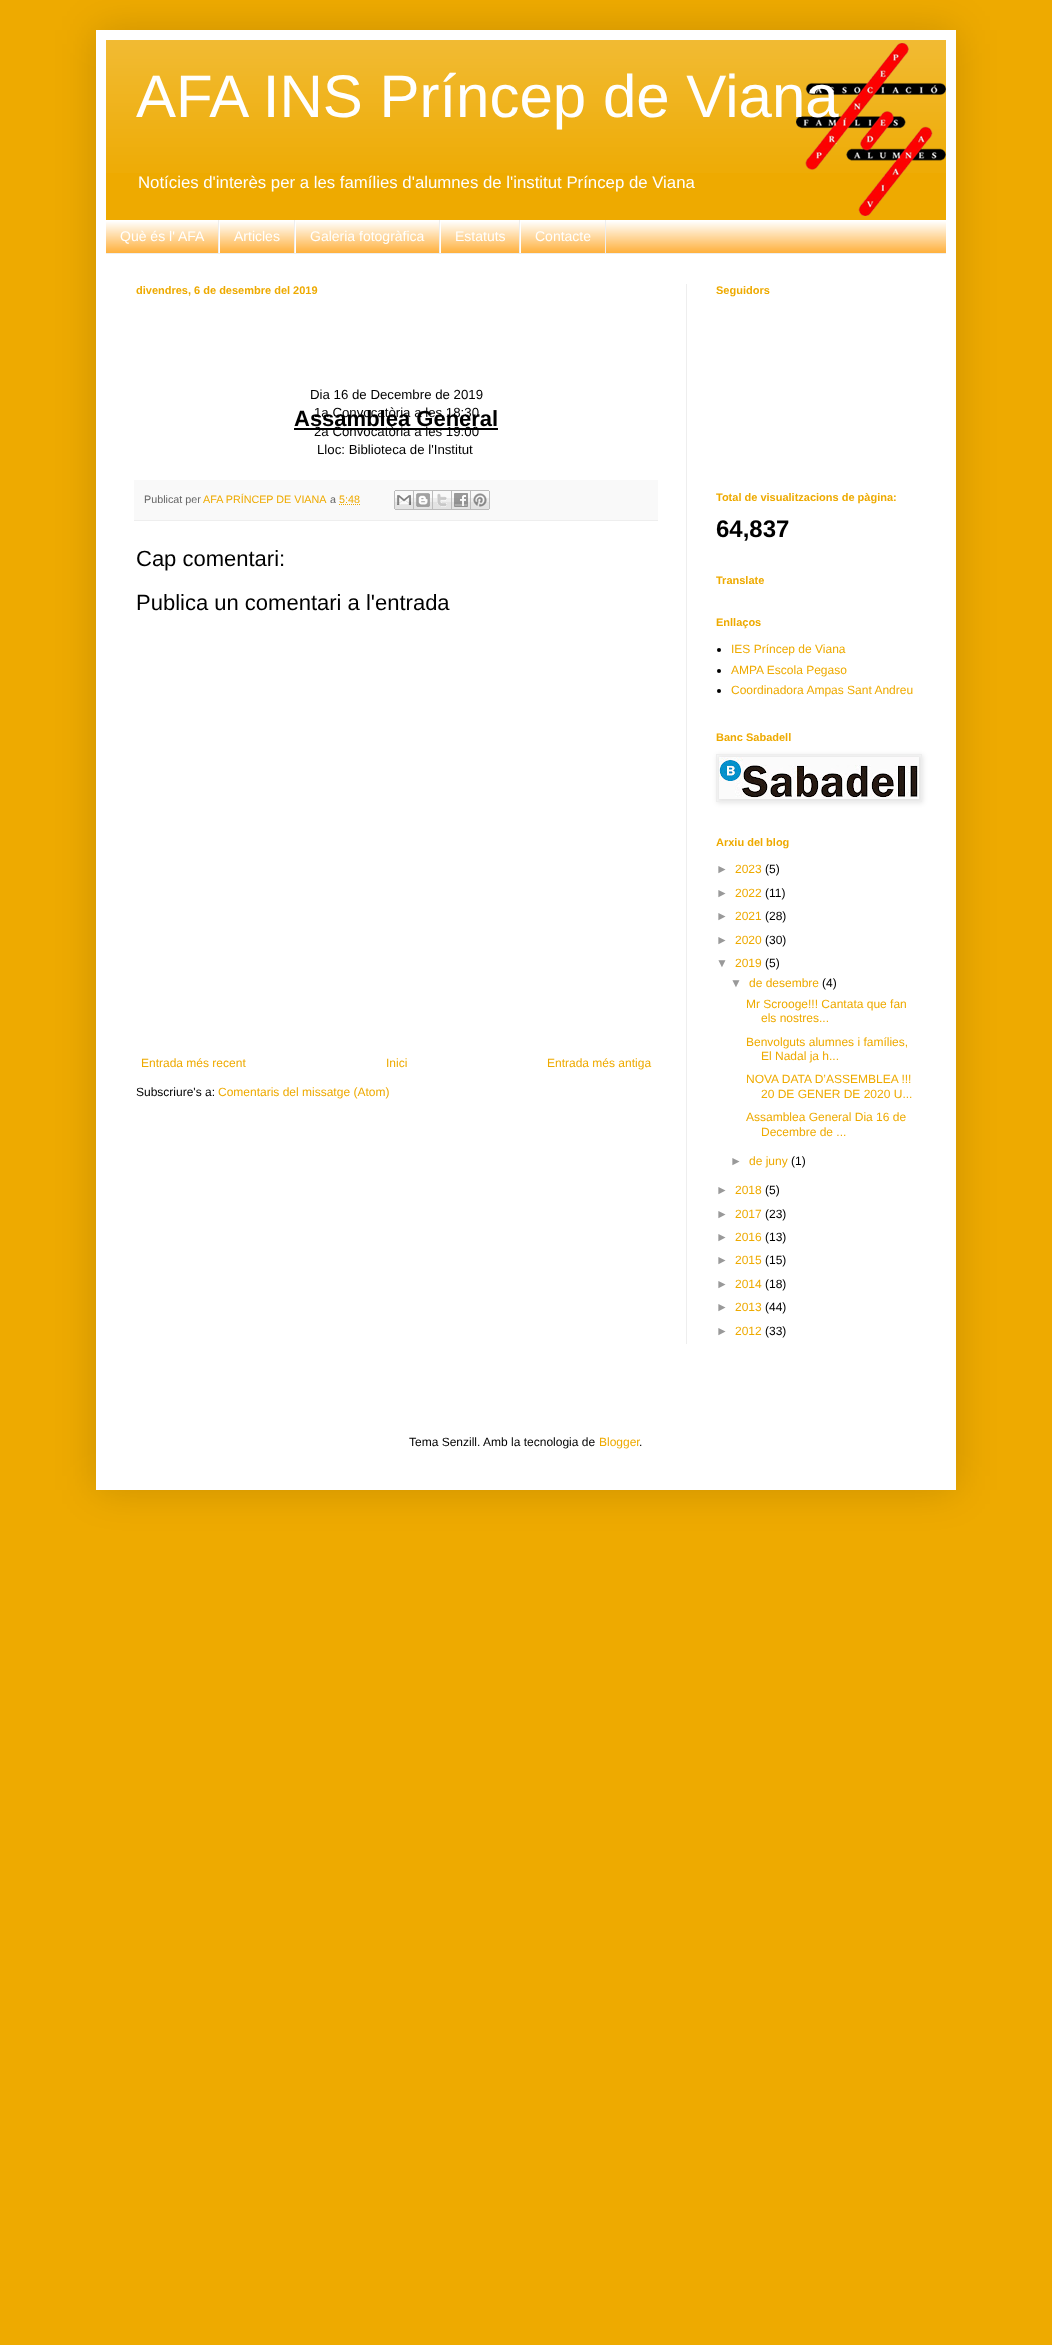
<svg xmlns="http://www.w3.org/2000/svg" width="1052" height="2345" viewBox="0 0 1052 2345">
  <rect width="100%" height="100%" fill="rgb(238,170,0)"/>
  <rect x="96" y="30" width="860" height="1460" fill="rgba(0,0,0,0.15)" filter="blur(20px)"/>
  <rect x="96" y="30" width="860" height="1460" fill="rgb(255,255,255)"/>
  <rect x="106" y="40" width="840" height="180" fill="rgb(238,170,0)"/>
  <image x="106" y="40" width="840" height="133" href="pic1.png"/>
  <image x="796" y="43" width="150" height="173" href="pic2.png"/>
  <text x="136" y="117" font-family="Liberation Sans" font-size="60" fill="rgb(255,255,255)">AFA INS Príncep de Viana</text>
  <text x="138" y="188" font-family="Liberation Sans" font-size="16.8" fill="rgb(255,255,255)">Notícies d'interès per a les famílies d'alumnes de l'institut Príncep de Viana</text>
  <rect x="106" y="221" width="840" height="32" fill="rgb(255,162,24)"/>
  <image x="106" y="220" width="840" height="33" href="pic3.png"/>
  <rect x="106" y="253" width="840" height="1" fill="rgb(238,238,238)"/>
  <rect x="218" y="220" width="1" height="33" fill="rgb(238,238,238)"/>
  <text x="120" y="241" font-family="Liberation Sans" font-size="14" fill="rgb(255,255,255)">Què és l' AFA</text>
  <rect x="294" y="220" width="1" height="33" fill="rgb(238,238,238)"/>
  <rect x="219" y="220" width="1" height="33" fill="rgb(255,255,255)"/>
  <text x="234" y="241" font-family="Liberation Sans" font-size="14" fill="rgb(255,255,255)">Articles</text>
  <rect x="439" y="220" width="1" height="33" fill="rgb(238,238,238)"/>
  <rect x="295" y="220" width="1" height="33" fill="rgb(255,255,255)"/>
  <text x="310" y="241" font-family="Liberation Sans" font-size="14" fill="rgb(255,255,255)">Galeria fotogràfica</text>
  <rect x="519" y="220" width="1" height="33" fill="rgb(238,238,238)"/>
  <rect x="440" y="220" width="1" height="33" fill="rgb(255,255,255)"/>
  <text x="455" y="241" font-family="Liberation Sans" font-size="14" fill="rgb(255,255,255)">Estatuts</text>
  <rect x="605" y="220" width="1" height="33" fill="rgb(238,238,238)"/>
  <rect x="520" y="220" width="1" height="33" fill="rgb(255,255,255)"/>
  <text x="535" y="241" font-family="Liberation Sans" font-size="14" fill="rgb(255,255,255)">Contacte</text>
  <rect x="686" y="284" width="1" height="1060" fill="rgb(238,238,238)"/>
  <text x="136" y="294" font-family="Liberation Sans" font-size="11" font-weight="bold" fill="rgb(238,170,0)">divendres, 6 de desembre del 2019</text>
  <g font-family="Liberation Sans" font-size="13.25" fill="rgb(0,0,0)">
    <text x="310" y="399">Dia 16 de Decembre de 2019</text>
    <text x="314" y="417">1a Convocatòria a les 18:30</text>
  </g>
  <text x="294" y="426" font-family="Liberation Sans" font-size="22" font-weight="bold" fill="rgb(0,0,0)">Assamblea General</text>
  <rect x="294" y="428" width="204" height="2" fill="rgb(0,0,0)"/>
  <g font-family="Liberation Sans" font-size="13.25" fill="rgb(0,0,0)">
    <text x="314" y="436">2a Convocatòria a les 19:00</text>
    <text x="317" y="454">Lloc: Biblioteca de l'Institut</text>
  </g>
  <rect x="134" y="480" width="524" height="40" fill="rgb(249,249,249)"/>
  <rect x="134" y="520" width="524" height="1" fill="rgb(238,238,238)"/>
  <text x="144" y="503" font-family="Liberation Sans" font-size="10.75" fill="rgb(102,102,102)">Publicat per</text>
  <text x="203" y="503" font-family="Liberation Sans" font-size="10.75" fill="rgb(238,170,0)">AFA PRÍNCEP DE VIANA</text>
  <text x="330" y="503" font-family="Liberation Sans" font-size="10.75" fill="rgb(102,102,102)">a</text>
  <text x="339" y="503" font-family="Liberation Sans" font-size="10.75" fill="rgb(238,170,0)">5:48</text>
  <path d="M339 504.5H360" fill="none" stroke="rgb(238,170,0)" stroke-dasharray="1 1"/>
  <image x="394" y="490" width="20" height="20" href="pic4.png"/>
  <image x="414" y="490" width="19" height="20" href="pic5.png"/>
  <image x="433" y="490" width="19" height="20" href="pic6.png"/>
  <image x="452" y="490" width="19" height="20" href="pic7.png"/>
  <image x="471" y="490" width="19" height="20" href="pic8.png"/>
  <g font-family="Liberation Sans" font-size="22" fill="rgb(0,0,0)">
    <text x="136" y="566">Cap comentari:</text>
    <text x="136" y="610">Publica un comentari a l'entrada</text>
  </g>
  <g font-family="Liberation Sans" font-size="12" fill="rgb(238,170,0)">
    <text x="141" y="1067">Entrada més recent</text>
    <text x="386" y="1067">Inici</text>
    <text x="547" y="1067">Entrada més antiga</text>
  </g>
  <text x="136" y="1096" font-family="Liberation Sans" font-size="12" fill="rgb(0,0,0)">Subscriure's a:</text>
  <text x="218" y="1096" font-family="Liberation Sans" font-size="12" fill="rgb(238,170,0)">Comentaris del missatge (Atom)</text>
  <g font-family="Liberation Sans" font-size="11" font-weight="bold" fill="rgb(238,170,0)">
    <text x="716" y="294">Seguidors</text>
    <text x="716" y="501">Total de visualitzacions de pàgina:</text>
  </g>
  <text x="716" y="537" font-family="Liberation Sans" font-size="24" font-weight="bold" fill="rgb(0,0,0)">64,837</text>
  <g font-family="Liberation Sans" font-size="11" font-weight="bold" fill="rgb(238,170,0)">
    <text x="716" y="584">Translate</text>
    <text x="716" y="626">Enllaços</text>
  </g>
  <circle cx="719" cy="650" r="2" fill="rgb(0,0,0)"/>
  <text x="731" y="653" font-family="Liberation Sans" font-size="12" fill="rgb(238,170,0)">IES Príncep de Viana</text>
  <circle cx="719" cy="671" r="2" fill="rgb(0,0,0)"/>
  <text x="731" y="674" font-family="Liberation Sans" font-size="12" fill="rgb(238,170,0)">AMPA Escola Pegaso</text>
  <circle cx="719" cy="691" r="2" fill="rgb(0,0,0)"/>
  <text x="731" y="694" font-family="Liberation Sans" font-size="12" fill="rgb(238,170,0)">Coordinadora Ampas Sant Andreu</text>
  <text x="716" y="741" font-family="Liberation Sans" font-size="11" font-weight="bold" fill="rgb(238,170,0)">Banc Sabadell</text>
  <rect x="717" y="755" width="206" height="48" fill="rgba(0,0,0,0.1)" filter="blur(2.5px)"/>
  <rect x="716.5" y="754.5" width="205" height="47" fill="none" stroke="rgb(238,238,238)"/>
  <image x="719" y="757" width="200" height="42" href="pic9.png"/>
  <text x="716" y="846" font-family="Liberation Sans" font-size="11" font-weight="bold" fill="rgb(238,170,0)">Arxiu del blog</text>
  <text x="716" y="873" font-family="Liberation Sans" font-size="12" fill="rgb(153,153,153)">►</text>
  <text x="735" y="873" font-family="Liberation Sans" font-size="12" fill="rgb(238,170,0)">2023</text>
  <text x="765" y="873" font-family="Liberation Sans" font-size="12" fill="rgb(0,0,0)">(5)</text>
  <text x="716" y="897" font-family="Liberation Sans" font-size="12" fill="rgb(153,153,153)">►</text>
  <text x="735" y="897" font-family="Liberation Sans" font-size="12" fill="rgb(238,170,0)">2022</text>
  <text x="765" y="897" font-family="Liberation Sans" font-size="12" fill="rgb(0,0,0)">(11)</text>
  <text x="716" y="920" font-family="Liberation Sans" font-size="12" fill="rgb(153,153,153)">►</text>
  <text x="735" y="920" font-family="Liberation Sans" font-size="12" fill="rgb(238,170,0)">2021</text>
  <text x="765" y="920" font-family="Liberation Sans" font-size="12" fill="rgb(0,0,0)">(28)</text>
  <text x="716" y="944" font-family="Liberation Sans" font-size="12" fill="rgb(153,153,153)">►</text>
  <text x="735" y="944" font-family="Liberation Sans" font-size="12" fill="rgb(238,170,0)">2020</text>
  <text x="765" y="944" font-family="Liberation Sans" font-size="12" fill="rgb(0,0,0)">(30)</text>
  <text x="716" y="967" font-family="Liberation Sans" font-size="12" fill="rgb(153,153,153)">▼</text>
  <text x="735" y="967" font-family="Liberation Sans" font-size="12" fill="rgb(238,170,0)">2019</text>
  <text x="765" y="967" font-family="Liberation Sans" font-size="12" fill="rgb(0,0,0)">(5)</text>
  <text x="730" y="987" font-family="Liberation Sans" font-size="12" fill="rgb(153,153,153)">▼</text>
  <text x="749" y="987" font-family="Liberation Sans" font-size="12" fill="rgb(238,170,0)">de desembre</text>
  <text x="822" y="987" font-family="Liberation Sans" font-size="12" fill="rgb(0,0,0)">(4)</text>
  <g font-family="Liberation Sans" font-size="12" fill="rgb(238,170,0)">
    <text x="746" y="1008">Mr Scrooge!!! Cantata que fan</text>
    <text x="761" y="1022">els nostres...</text>
    <text x="746" y="1046">Benvolguts alumnes i famílies,</text>
    <text x="761" y="1060">El Nadal ja h...</text>
    <text x="746" y="1083">NOVA DATA D’ASSEMBLEA !!!</text>
    <text x="761" y="1098">20 DE GENER DE 2020 U...</text>
    <text x="746" y="1121">Assamblea General Dia 16 de</text>
    <text x="761" y="1136">Decembre de ...</text>
  </g>
  <text x="730" y="1165" font-family="Liberation Sans" font-size="12" fill="rgb(153,153,153)">►</text>
  <text x="749" y="1165" font-family="Liberation Sans" font-size="12" fill="rgb(238,170,0)">de juny</text>
  <text x="791" y="1165" font-family="Liberation Sans" font-size="12" fill="rgb(0,0,0)">(1)</text>
  <text x="716" y="1194" font-family="Liberation Sans" font-size="12" fill="rgb(153,153,153)">►</text>
  <text x="735" y="1194" font-family="Liberation Sans" font-size="12" fill="rgb(238,170,0)">2018</text>
  <text x="765" y="1194" font-family="Liberation Sans" font-size="12" fill="rgb(0,0,0)">(5)</text>
  <text x="716" y="1218" font-family="Liberation Sans" font-size="12" fill="rgb(153,153,153)">►</text>
  <text x="735" y="1218" font-family="Liberation Sans" font-size="12" fill="rgb(238,170,0)">2017</text>
  <text x="765" y="1218" font-family="Liberation Sans" font-size="12" fill="rgb(0,0,0)">(23)</text>
  <text x="716" y="1241" font-family="Liberation Sans" font-size="12" fill="rgb(153,153,153)">►</text>
  <text x="735" y="1241" font-family="Liberation Sans" font-size="12" fill="rgb(238,170,0)">2016</text>
  <text x="765" y="1241" font-family="Liberation Sans" font-size="12" fill="rgb(0,0,0)">(13)</text>
  <text x="716" y="1264" font-family="Liberation Sans" font-size="12" fill="rgb(153,153,153)">►</text>
  <text x="735" y="1264" font-family="Liberation Sans" font-size="12" fill="rgb(238,170,0)">2015</text>
  <text x="765" y="1264" font-family="Liberation Sans" font-size="12" fill="rgb(0,0,0)">(15)</text>
  <text x="716" y="1288" font-family="Liberation Sans" font-size="12" fill="rgb(153,153,153)">►</text>
  <text x="735" y="1288" font-family="Liberation Sans" font-size="12" fill="rgb(238,170,0)">2014</text>
  <text x="765" y="1288" font-family="Liberation Sans" font-size="12" fill="rgb(0,0,0)">(18)</text>
  <text x="716" y="1311" font-family="Liberation Sans" font-size="12" fill="rgb(153,153,153)">►</text>
  <text x="735" y="1311" font-family="Liberation Sans" font-size="12" fill="rgb(238,170,0)">2013</text>
  <text x="765" y="1311" font-family="Liberation Sans" font-size="12" fill="rgb(0,0,0)">(44)</text>
  <text x="716" y="1335" font-family="Liberation Sans" font-size="12" fill="rgb(153,153,153)">►</text>
  <text x="735" y="1335" font-family="Liberation Sans" font-size="12" fill="rgb(238,170,0)">2012</text>
  <g font-family="Liberation Sans" font-size="12" fill="rgb(0,0,0)">
    <text x="765" y="1335">(33)</text>
    <text x="409" y="1446">Tema Senzill. Amb la tecnologia de</text>
  </g>
  <text x="599" y="1446" font-family="Liberation Sans" font-size="12" fill="rgb(238,170,0)">Blogger</text>
  <text x="639" y="1446" font-family="Liberation Sans" font-size="12" fill="rgb(0,0,0)">.</text>
</svg>
